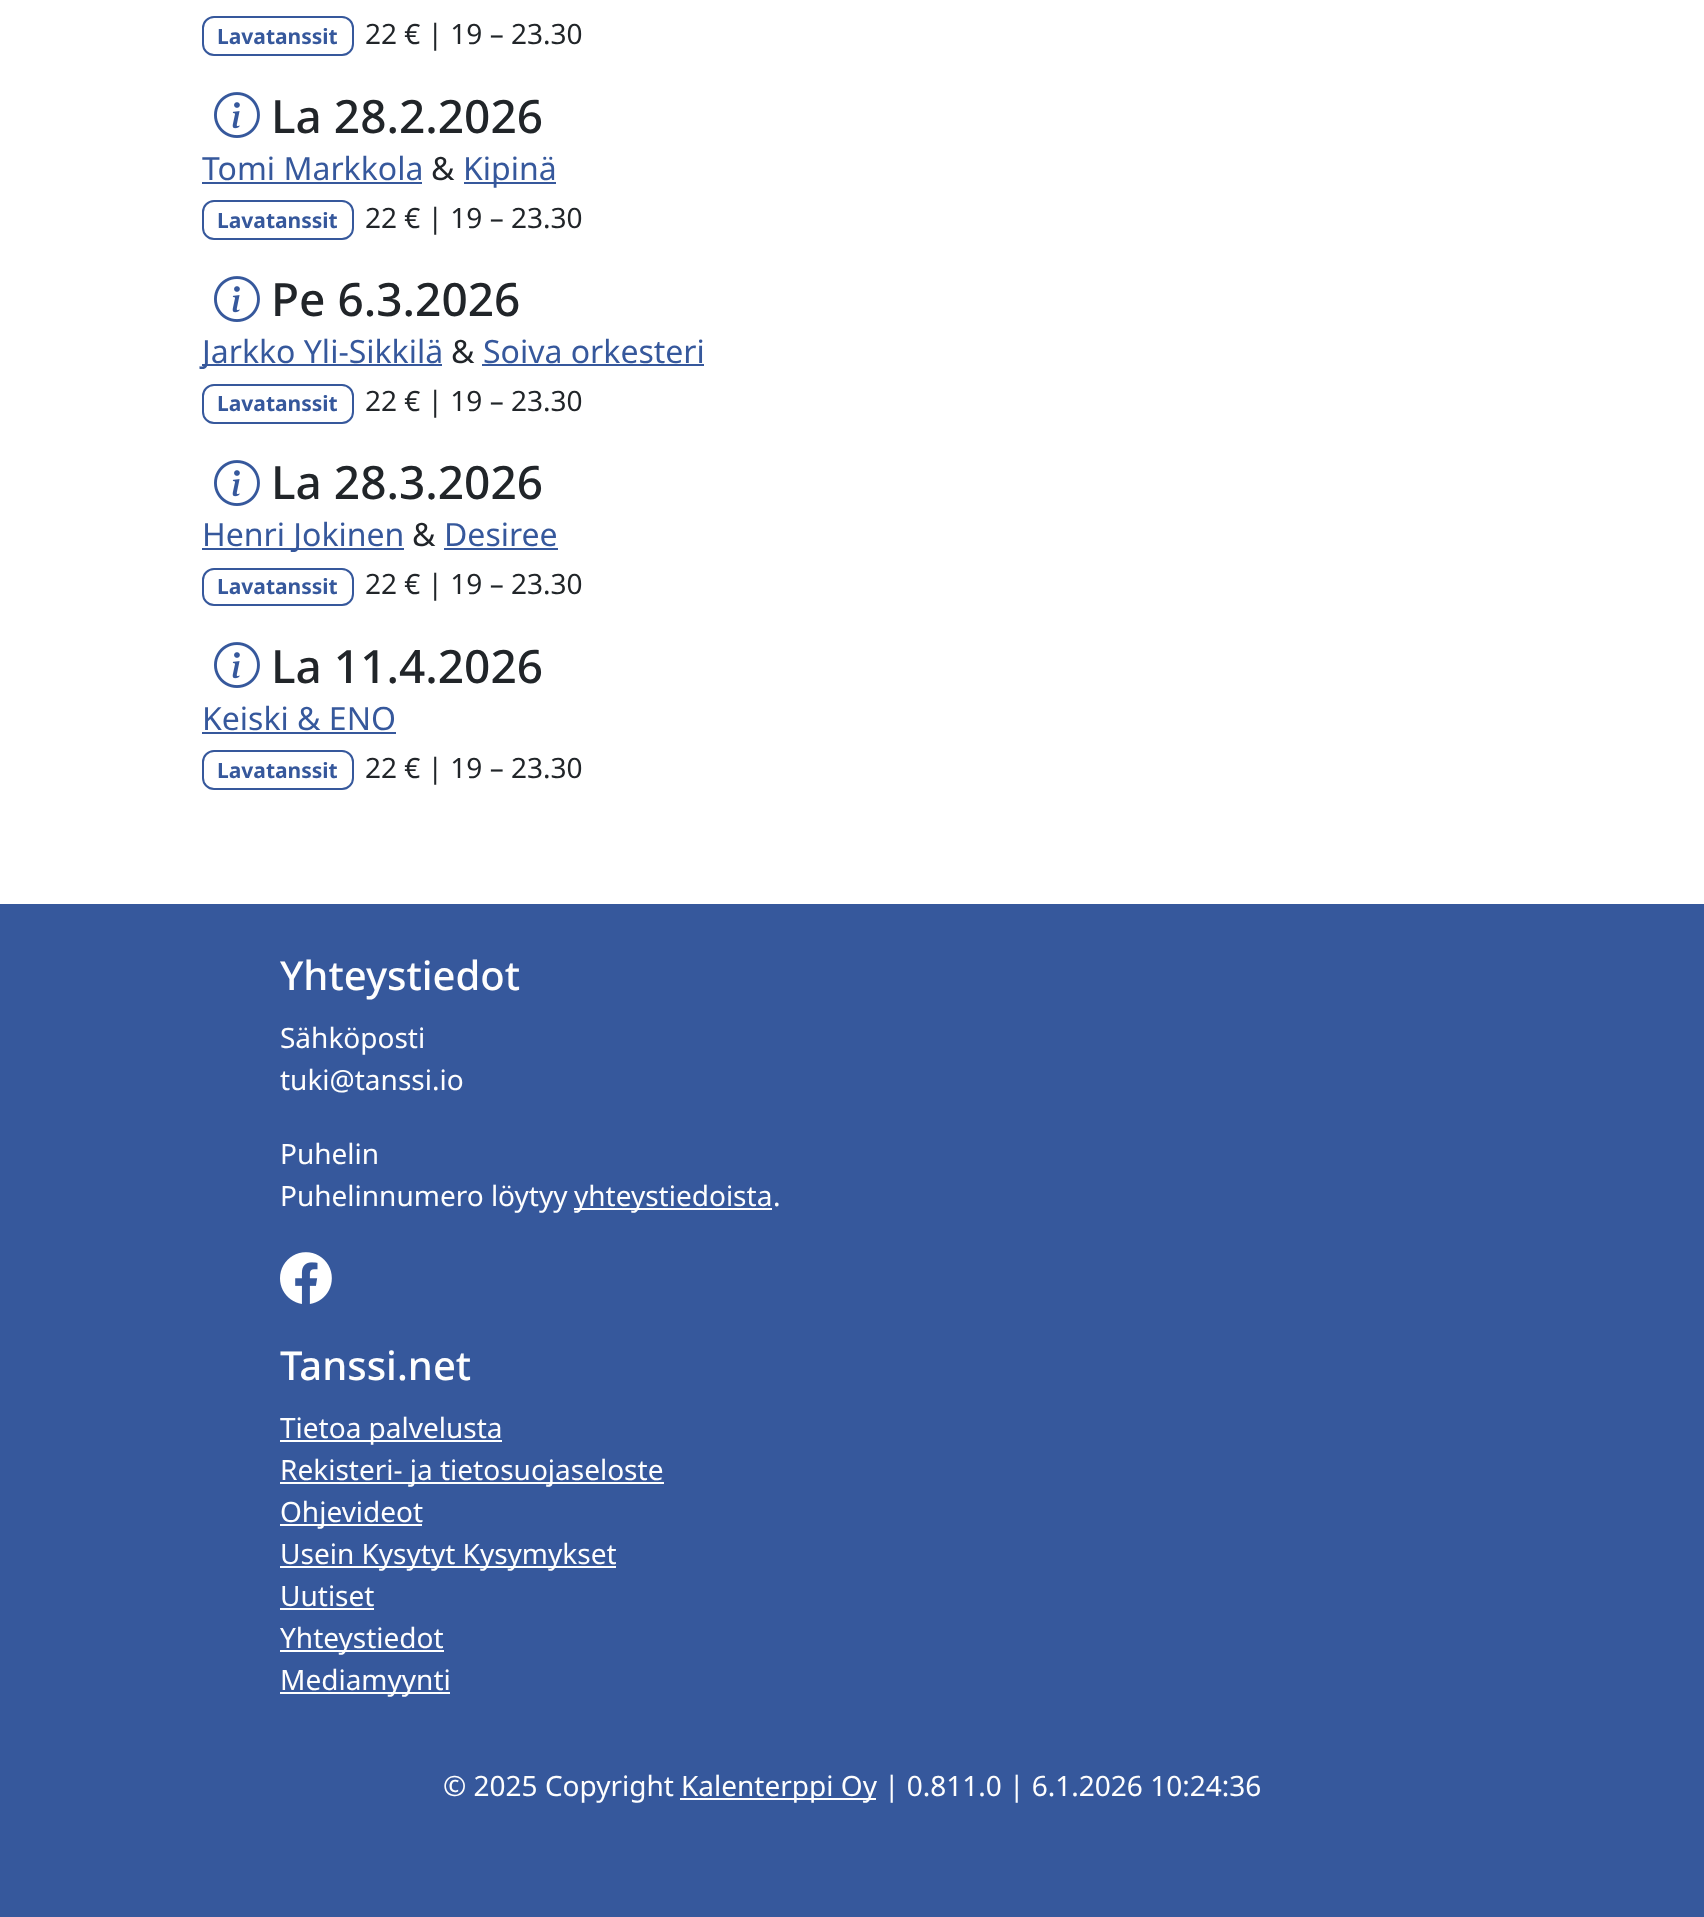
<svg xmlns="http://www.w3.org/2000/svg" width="1704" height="1917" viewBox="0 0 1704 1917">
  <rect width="100%" height="100%" fill="rgb(255,255,255)"/>
  <rect x="203" y="17" width="150" height="38" rx="11" fill="none" stroke="rgb(54,88,156)" stroke-width="2"/>
  <text x="217" y="44" font-family="Noto Sans" font-size="21" font-weight="bold" fill="rgb(54,88,156)">Lavatanssit</text>
  <text x="365" y="44" font-family="Noto Sans" font-size="28" fill="rgb(33,37,41)">22 € | 19 – 23.30</text>
  <image x="214" y="92" width="46" height="46" href="pic1.png"/>
  <text x="271" y="133" font-family="Noto Sans" font-size="46" font-weight="500" fill="rgb(33,37,41)">La 28.2.2026</text>
  <text x="202" y="180" font-family="Noto Sans" font-size="32" fill="rgb(54,88,156)">Tomi Markkola</text>
  <rect x="202" y="182" width="220" height="2" fill="rgb(54,88,156)"/>
  <text x="431" y="180" font-family="Noto Sans" font-size="32" fill="rgb(33,37,41)">&amp;</text>
  <rect x="464" y="182" width="92" height="2" fill="rgb(54,88,156)"/>
  <text x="463" y="180" font-family="Noto Sans" font-size="32" fill="rgb(54,88,156)">Kipinä</text>
  <rect x="203" y="201" width="150" height="38" rx="11" fill="none" stroke="rgb(54,88,156)" stroke-width="2"/>
  <text x="217" y="228" font-family="Noto Sans" font-size="21" font-weight="bold" fill="rgb(54,88,156)">Lavatanssit</text>
  <text x="365" y="228" font-family="Noto Sans" font-size="28" fill="rgb(33,37,41)">22 € | 19 – 23.30</text>
  <image x="214" y="276" width="46" height="46" href="pic1.png"/>
  <text x="271" y="316" font-family="Noto Sans" font-size="46" font-weight="500" fill="rgb(33,37,41)">Pe 6.3.2026</text>
  <rect x="202" y="364" width="240" height="2" fill="rgb(54,88,156)"/>
  <text x="202" y="363" font-family="Noto Sans" font-size="32" fill="rgb(54,88,156)">Jarkko Yli-Sikkilä</text>
  <text x="451" y="363" font-family="Noto Sans" font-size="32" fill="rgb(33,37,41)">&amp;</text>
  <text x="483" y="363" font-family="Noto Sans" font-size="32" fill="rgb(54,88,156)">Soiva orkesteri</text>
  <rect x="482" y="364" width="222" height="2" fill="rgb(54,88,156)"/>
  <rect x="203" y="385" width="150" height="38" rx="11" fill="none" stroke="rgb(54,88,156)" stroke-width="2"/>
  <text x="217" y="411" font-family="Noto Sans" font-size="21" font-weight="bold" fill="rgb(54,88,156)">Lavatanssit</text>
  <text x="365" y="411" font-family="Noto Sans" font-size="28" fill="rgb(33,37,41)">22 € | 19 – 23.30</text>
  <image x="214" y="460" width="46" height="46" href="pic1.png"/>
  <text x="271" y="499" font-family="Noto Sans" font-size="46" font-weight="500" fill="rgb(33,37,41)">La 28.3.2026</text>
  <rect x="202" y="548" width="202" height="2" fill="rgb(54,88,156)"/>
  <text x="202" y="546" font-family="Noto Sans" font-size="32" fill="rgb(54,88,156)">Henri Jokinen</text>
  <text x="412" y="546" font-family="Noto Sans" font-size="32" fill="rgb(33,37,41)">&amp;</text>
  <text x="444" y="546" font-family="Noto Sans" font-size="32" fill="rgb(54,88,156)">Desiree</text>
  <rect x="444" y="548" width="114" height="2" fill="rgb(54,88,156)"/>
  <rect x="203" y="569" width="150" height="36" rx="11" fill="none" stroke="rgb(54,88,156)" stroke-width="2"/>
  <text x="217" y="594" font-family="Noto Sans" font-size="21" font-weight="bold" fill="rgb(54,88,156)">Lavatanssit</text>
  <text x="365" y="594" font-family="Noto Sans" font-size="28" fill="rgb(33,37,41)">22 € | 19 – 23.30</text>
  <image x="214" y="642" width="46" height="46" href="pic1.png"/>
  <text x="271" y="683" font-family="Noto Sans" font-size="46" font-weight="500" fill="rgb(33,37,41)">La 11.4.2026</text>
  <text x="202" y="730" font-family="Noto Sans" font-size="32" fill="rgb(54,88,156)">Keiski &amp; ENO</text>
  <rect x="202" y="732" width="194" height="2" fill="rgb(54,88,156)"/>
  <rect x="203" y="751" width="150" height="38" rx="11" fill="none" stroke="rgb(54,88,156)" stroke-width="2"/>
  <text x="217" y="778" font-family="Noto Sans" font-size="21" font-weight="bold" fill="rgb(54,88,156)">Lavatanssit</text>
  <text x="365" y="778" font-family="Noto Sans" font-size="28" fill="rgb(33,37,41)">22 € | 19 – 23.30</text>
  <rect x="0" y="904" width="1704" height="1013" fill="rgb(54,88,156)"/>
  <text x="280" y="990" font-family="Noto Sans" font-size="40" font-weight="500" fill="rgb(254,254,254)">Yhteystiedot</text>
  <g font-family="Noto Sans" font-size="28" fill="rgb(254,254,254)">
    <text>
      <tspan x="280" y="1048">Sähköposti</tspan>
      <tspan x="280" y="1090">tuki@tanssi.io</tspan>
    </text>
    <text>
      <tspan x="280" y="1164">Puhelin</tspan>
      <tspan x="280" y="1206">Puhelinnumero löytyy</tspan>
    </text>
  </g>
  <rect x="574" y="1208" width="198" height="2" fill="rgb(255,255,255)"/>
  <g font-family="Noto Sans" font-size="28" fill="rgb(254,254,254)">
    <text x="574" y="1206">yhteystiedoista</text>
    <text x="773" y="1206">.</text>
  </g>
  <image x="280" y="1252" width="52" height="52" href="pic2.png"/>
  <text x="280" y="1380" font-family="Noto Sans" font-size="40" font-weight="500" fill="rgb(254,254,254)">Tanssi.net</text>
  <rect x="280" y="1440" width="222" height="2" fill="rgb(255,255,255)"/>
  <text x="280" y="1438" font-family="Noto Sans" font-size="28" fill="rgb(254,254,254)">Tietoa palvelusta</text>
  <rect x="280" y="1482" width="384" height="2" fill="rgb(255,255,255)"/>
  <text x="280" y="1480" font-family="Noto Sans" font-size="28" fill="rgb(254,254,254)">Rekisteri- ja tietosuojaseloste</text>
  <rect x="280" y="1524" width="142" height="2" fill="rgb(255,255,255)"/>
  <text x="280" y="1522" font-family="Noto Sans" font-size="28" fill="rgb(254,254,254)">Ohjevideot</text>
  <rect x="280" y="1566" width="336" height="2" fill="rgb(255,255,255)"/>
  <g font-family="Noto Sans" font-size="28" fill="rgb(254,254,254)">
    <text>
      <tspan x="280" y="1564">Usein Kysytyt Kysymykset</tspan>
      <tspan x="280" y="1606">Uutiset</tspan>
    </text>
  </g>
  <rect x="280" y="1608" width="94" height="2" fill="rgb(255,255,255)"/>
  <rect x="280" y="1650" width="164" height="2" fill="rgb(255,255,255)"/>
  <text x="280" y="1648" font-family="Noto Sans" font-size="28" fill="rgb(254,254,254)">Yhteystiedot</text>
  <rect x="280" y="1692" width="170" height="2" fill="rgb(255,255,255)"/>
  <g font-family="Noto Sans" font-size="28" fill="rgb(254,254,254)">
    <text x="280" y="1690">Mediamyynti</text>
    <text x="443" y="1796">© 2025 Copyright</text>
  </g>
  <rect x="680" y="1798" width="196" height="2" fill="rgb(255,255,255)"/>
  <g font-family="Noto Sans" font-size="28" fill="rgb(254,254,254)">
    <text x="681" y="1796">Kalenterppi Oy</text>
    <text x="884" y="1796">| 0.811.0 | 6.1.2026 10:24:36</text>
  </g>
</svg>
